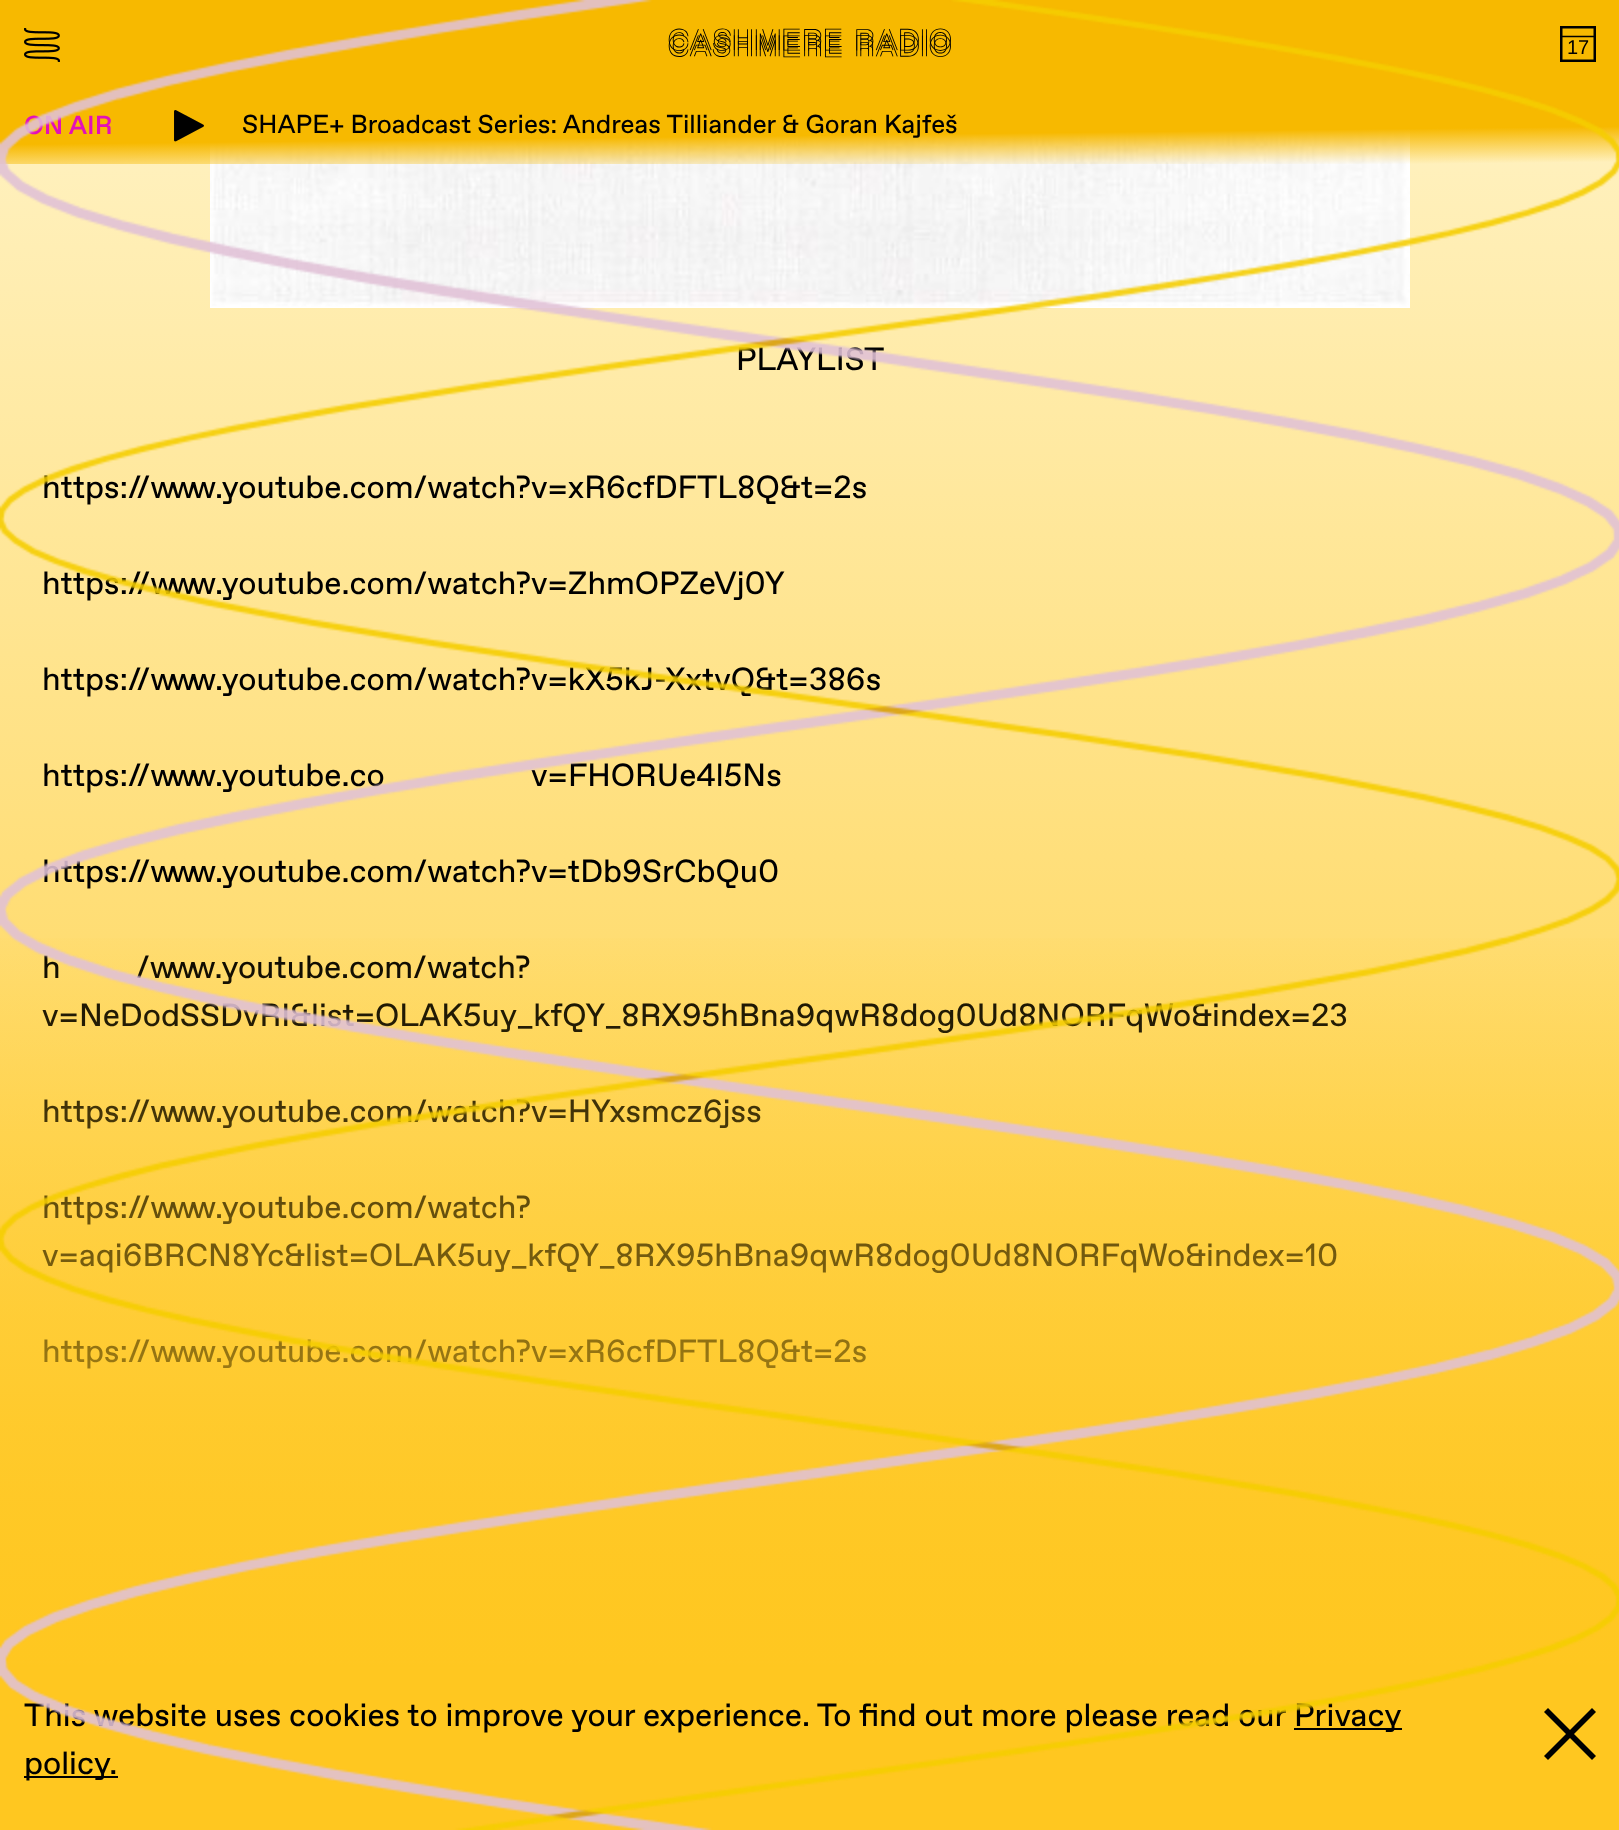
<svg xmlns="http://www.w3.org/2000/svg" width="1619" height="1830" viewBox="0 0 1619 1830">
  <defs>
    <linearGradient id="g1" gradientUnits="userSpaceOnUse" x1="810" y1="-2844" x2="810" y2="1830"><stop offset="0" stop-color="rgb(220,200,215)"/><stop offset="0.54" stop-color="rgb(255,252,233)"/><stop offset="1" stop-color="rgb(255,199,32)"/></linearGradient>
    <linearGradient id="g2" gradientUnits="userSpaceOnUse" x1="809" y1="-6.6" x2="811" y2="171"><stop offset="0.8" stop-color="rgb(247,185,0)"/><stop offset="1" stop-color="rgb(247,185,0)" stop-opacity="0"/></linearGradient>
    <linearGradient id="g3" gradientUnits="userSpaceOnUse" x1="810" y1="1830" x2="810" y2="916"><stop offset="0.18" stop-color="rgb(255,199,32)"/><stop offset="1" stop-color="rgb(255,199,32)" stop-opacity="0"/></linearGradient>
  </defs>
  <rect width="100%" height="100%" fill="rgb(255,255,255)"/>
  <rect x="0" y="127" width="1619" height="1534" fill="url(#g1)"/>
  <image x="210" y="129" width="1200" height="179" href="pic5.png"/>
  <rect x="0" y="0" width="1619" height="164" fill="url(#g2)"/>
  <image x="24" y="28" width="36" height="34" href="pic2.png"/>
  <image x="668" y="28" width="283" height="30" href="pic3.png"/>
  <rect x="1561.25" y="27.25" width="33.5" height="33.5" fill="none" stroke="rgb(0,0,0)" stroke-width="2.5"/>
  <path d="M1561.5 36.5H1594.5Z" fill="none" stroke="rgb(0,0,0)" stroke-width="1.4" stroke-linecap="round"/>
  <text x="1567" y="54" font-family="Liberation Sans" font-size="20" fill="rgb(0,0,0)">17</text>
  <text x="24" y="134" font-family="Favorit" font-size="26" font-weight="500" fill="rgb(227,17,184)">ON AIR</text>
  <image x="174" y="110" width="30" height="32" href="pic4.png"/>
  <text x="242" y="133" font-family="Favorit" font-size="26" fill="rgb(0,0,0)">SHAPE+ Broadcast Series: Andreas Tilliander &amp; Goran Kajfeš</text>
  <g font-family="Favorit" font-size="32" fill="rgb(0,0,0)">
    <text x="736" y="370">PLAYLIST</text>
    <text x="42" y="498">https://www.youtube.com/watch?v=xR6cfDFTL8Q&amp;t=2s</text>
    <text x="42" y="594">https://www.youtube.com/watch?v=ZhmOPZeVj0Y</text>
    <text x="42" y="690">https://www.youtube.com/watch?v=kX5kJ-XxtvQ&amp;t=386s</text>
    <text x="42" y="786">https://www.youtube.co</text>
    <text x="531" y="786">v=FHORUe4l5Ns</text>
    <text x="42" y="882">https://www.youtube.com/watch?v=tDb9SrCbQu0</text>
    <text x="42" y="978">h</text>
    <text x="136" y="978">/www.youtube.com/watch?</text>
    <text x="42" y="1026">v=NeDodSSDvRI&amp;list=OLAK5uy_kfQY_8RX95hBna9qwR8dog0Ud8NORFqWo&amp;index=23</text>
    <text x="42" y="1122">https://www.youtube.com/watch?v=HYxsmcz6jss</text>
    <text>
      <tspan x="42" y="1218">https://www.youtube.com/watch?</tspan>
      <tspan x="42" y="1266">v=aqi6BRCN8Yc&amp;list=OLAK5uy_kfQY_8RX95hBna9qwR8dog0Ud8NORFqWo&amp;index=10</tspan>
    </text>
    <text x="42" y="1362">https://www.youtube.com/watch?v=xR6cfDFTL8Q&amp;t=2s</text>
  </g>
  <rect x="0" y="938" width="1619" height="892" fill="url(#g3)"/>
  <text x="24" y="1726" font-family="Favorit" font-size="32" fill="rgb(0,0,0)">This website uses cookies to improve your experience. To find out more please read our</text>
  <rect x="1294" y="1728" width="108" height="2" fill="rgb(0,0,0)"/>
  <text x="1294" y="1726" font-family="Favorit" font-size="32" fill="rgb(0,0,0)">Privacy</text>
  <rect x="24" y="1776" width="94" height="2" fill="rgb(0,0,0)"/>
  <text x="24" y="1774" font-family="Favorit" font-size="32" fill="rgb(0,0,0)">policy.</text>
  <path d="M1548 1708L1544 1712L1566 1734L1544 1756L1548 1760L1570 1738L1592 1760L1596 1756L1574 1734L1596 1712L1592 1708L1570 1730Z" fill="rgb(0,0,0)" fill-rule="evenodd"/>
  <image x="0" y="0" width="1619" height="1830" href="pic1.png"/>
</svg>
